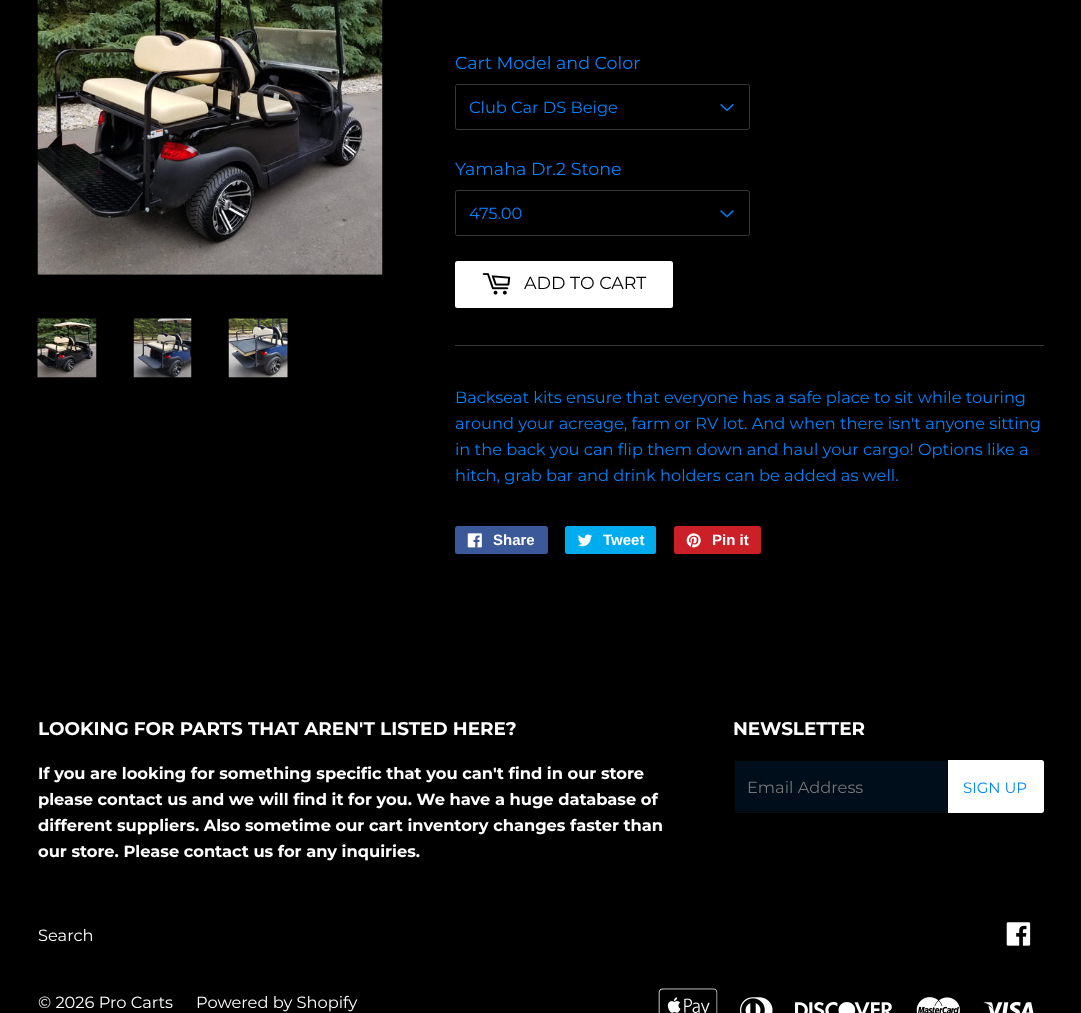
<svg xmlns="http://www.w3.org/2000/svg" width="1081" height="1013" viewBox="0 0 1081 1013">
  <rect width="100%" height="100%" fill="rgb(0,0,0)"/>
  <image x="37" y="0" width="346" height="275" href="pic1.png"/>
  <image x="37" y="318" width="60" height="60" href="pic2.png"/>
  <image x="133" y="318" width="59" height="60" href="pic3.png"/>
  <image x="228" y="318" width="60" height="60" href="pic4.png"/>
  <text x="455" y="69" font-family="Montserrat" font-size="17.5" fill="rgb(0,132,255)">Cart Model and Color</text>
  <image x="720" y="103" width="14" height="9" href="pic5.png"/>
  <rect x="455.5" y="84.5" width="294" height="45" rx="2" fill="none" stroke="rgb(55,55,55)"/>
  <text x="469" y="113" font-family="Montserrat" font-size="16.25" fill="rgb(0,132,255)">Club Car DS Beige</text>
  <text x="455" y="175" font-family="Montserrat" font-size="17.5" fill="rgb(0,132,255)">Yamaha Dr.2 Stone</text>
  <image x="720" y="210" width="14" height="8" href="pic6.png"/>
  <rect x="455.5" y="190.5" width="294" height="45" rx="2" fill="none" stroke="rgb(55,55,55)"/>
  <text x="469" y="219" font-family="Montserrat" font-size="16.25" fill="rgb(0,132,255)">475.00</text>
  <rect x="455" y="261" width="218" height="47" rx="2.5" fill="rgb(255,255,255)"/>
  <image x="482" y="273" width="29" height="22" href="pic7.png"/>
  <text x="524" y="289" font-family="Montserrat" font-size="17.5" fill="rgb(0,0,0)">ADD TO CART</text>
  <rect x="455" y="345" width="589" height="1" fill="rgb(55,55,55)"/>
  <g font-family="Montserrat" font-size="16.25" fill="rgb(0,132,255)">
    <text>
      <tspan x="455" y="403">Backseat kits ensure that everyone has a safe place to sit while touring</tspan>
      <tspan x="455" y="429">around your acreage, farm or RV lot. And when there isn't anyone sitting</tspan>
      <tspan x="455" y="455">in the back you can flip them down and haul your cargo! Options like a</tspan>
      <tspan x="455" y="481">hitch, grab bar and drink holders can be added as well.</tspan>
    </text>
  </g>
  <rect x="455" y="526" width="93" height="28" rx="2.5" fill="rgb(59,89,152)"/>
  <image x="467" y="533" width="15" height="15" href="pic8.png"/>
  <text x="493" y="545" font-family="Liberation Sans" font-size="15" font-weight="bold" fill="rgb(255,255,255)">Share</text>
  <rect x="565" y="526" width="91" height="28" rx="2.5" fill="rgb(0,172,237)"/>
  <image x="578" y="534" width="14" height="13" href="pic9.png"/>
  <text x="603" y="545" font-family="Liberation Sans" font-size="15" font-weight="bold" fill="rgb(255,255,255)">Tweet</text>
  <rect x="674" y="526" width="87" height="28" rx="2.5" fill="rgb(203,32,39)"/>
  <image x="686" y="533" width="15" height="15" href="pic10.png"/>
  <text x="712" y="545" font-family="Liberation Sans" font-size="15" font-weight="bold" fill="rgb(255,255,255)">Pin it</text>
  <text x="38" y="735" font-family="Montserrat" font-size="18.4" font-weight="bold" fill="rgb(255,255,255)">LOOKING FOR PARTS THAT AREN'T LISTED HERE?</text>
  <g font-family="Montserrat" font-size="16.25" font-weight="bold" fill="rgb(255,255,255)">
    <text>
      <tspan x="38" y="779">If you are looking for something specific that you can't find in our store</tspan>
      <tspan x="38" y="805">please contact us and we will find it for you. We have a huge database of</tspan>
      <tspan x="38" y="831">different suppliers. Also sometime our cart inventory changes faster than</tspan>
      <tspan x="38" y="857">our store. Please contact us for any inquiries.</tspan>
    </text>
  </g>
  <text x="733" y="735" font-family="Montserrat" font-size="18.4" font-weight="bold" fill="rgb(255,255,255)">NEWSLETTER</text>
  <rect x="734" y="760" width="214" height="53" rx="2.5" fill="rgb(0,13,26)"/>
  <rect x="735" y="760" width="211" height="1" fill="rgb(4,4,4)"/>
  <rect x="735" y="811" width="211" height="1" fill="rgb(4,4,4)"/>
  <rect x="734" y="761" width="1" height="50" fill="rgb(4,4,4)"/>
  <text x="747" y="793" font-family="Montserrat" font-size="16.25" fill="rgb(117,117,117)">Email Address</text>
  <path d="M948 760H1041.5C1043 760 1044 761 1044 762.5V810.5C1044 812 1043 813 1041.5 813H948Z" fill="rgb(255,255,255)"/>
  <text x="963" y="793" font-family="Montserrat" font-size="15" fill="rgb(0,132,255)">SIGN UP</text>
  <text x="38" y="941" font-family="Montserrat" font-size="16.25" fill="rgb(255,255,255)">Search</text>
  <image x="1006" y="922" width="25" height="24" href="pic11.png"/>
  <g font-family="Montserrat" font-size="16.25" fill="rgb(255,255,255)">
    <text x="38" y="1008">© 2026 Pro Carts</text>
    <text x="196" y="1008">Powered by Shopify</text>
  </g>
  <image x="658" y="988" width="60" height="25" href="pic12.png"/>
  <image x="740" y="997" width="33" height="16" href="pic13.png"/>
  <image x="795" y="1002" width="97" height="11" href="pic14.png"/>
  <image x="916" y="997" width="44" height="16" href="pic15.png"/>
  <image x="983" y="1002" width="51" height="11" href="pic16.png"/>
</svg>
